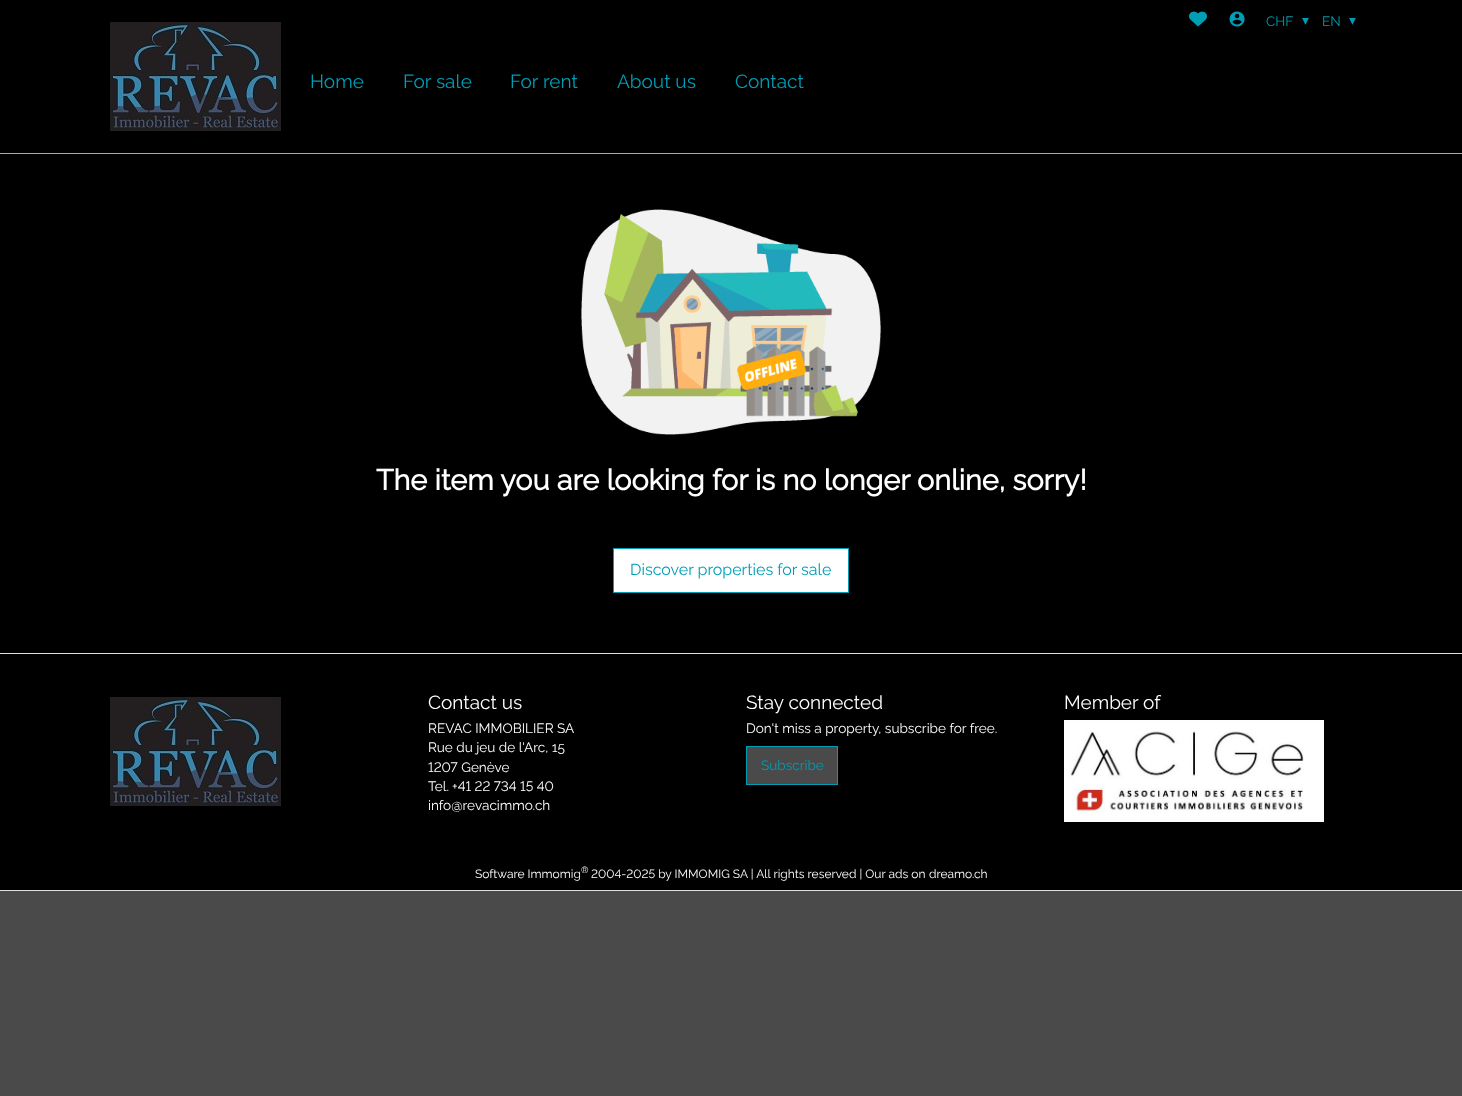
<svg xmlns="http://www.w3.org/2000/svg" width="1462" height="1096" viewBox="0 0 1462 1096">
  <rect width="100%" height="100%" fill="rgb(74,74,74)"/>
  <rect x="0" y="0" width="1462" height="153" fill="rgb(0,0,0)"/>
  <rect x="0" y="153" width="1462" height="1" fill="rgb(170,170,170)"/>
  <image x="110" y="22" width="171" height="109" href="pic1.png"/>
  <g font-family="Raleway" font-size="19" font-weight="100" fill="rgb(0,157,181)">
    <text x="310" y="88">Home</text>
    <text x="403" y="88">For sale</text>
    <text x="510" y="88">For rent</text>
    <text x="617" y="88">About us</text>
    <text x="735" y="88">Contact</text>
  </g>
  <image x="1189" y="11" width="18" height="16" href="pic2.png"/>
  <image x="1229" y="11" width="16" height="16" href="pic3.png"/>
  <text x="1266" y="26" font-family="Raleway" font-size="13.6" font-weight="100" fill="rgb(0,157,181)">CHF</text>
  <text x="1302" y="25" font-family="DejaVu Sans" font-size="13.6" fill="rgb(0,157,181)">▾</text>
  <text x="1322" y="26" font-family="Raleway" font-size="13.6" font-weight="100" fill="rgb(0,157,181)">EN</text>
  <text x="1349" y="25" font-family="DejaVu Sans" font-size="13.6" fill="rgb(0,157,181)">▾</text>
  <rect x="0" y="154" width="1462" height="499" fill="rgb(0,0,0)"/>
  <rect x="0" y="653" width="1462" height="1" fill="rgb(223,223,223)"/>
  <image x="581" y="209" width="300" height="226" href="pic4.png"/>
  <text x="376" y="490" font-family="Raleway" font-size="28.8" font-weight="bold" fill="rgb(255,255,255)">The item you are looking for is no longer online, sorry!</text>
  <rect x="613.5" y="548.5" width="235" height="44" fill="rgb(255,255,255)" stroke="rgb(0,157,181)"/>
  <text x="630" y="575" font-family="Raleway" font-size="16" font-weight="100" fill="rgb(0,157,181)">Discover properties for sale</text>
  <rect x="0" y="654" width="1462" height="236" fill="rgb(0,0,0)"/>
  <rect x="0" y="890" width="1462" height="1" fill="rgb(223,223,223)"/>
  <image x="110" y="697" width="171" height="109" href="pic1.png"/>
  <text x="428" y="709" font-family="Raleway" font-size="19" font-weight="100" fill="rgb(255,255,255)">Contact us</text>
  <g font-family="Raleway" font-size="13.6" font-weight="100" fill="rgb(255,255,255)">
    <text>
      <tspan x="428" y="733">REVAC IMMOBILIER SA</tspan>
      <tspan x="428" y="752">Rue du jeu de l'Arc, 15</tspan>
    </text>
  </g>
  <text x="428" y="772" font-family="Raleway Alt" font-size="13.6" font-weight="100" fill="rgb(255,255,255)">1207 Genève</text>
  <text x="428" y="791" font-family="Raleway" font-size="13.6" font-weight="100" fill="rgb(255,255,255)">Tel.</text>
  <text x="452" y="791" font-family="Raleway Alt" font-size="13.6" font-weight="100" fill="rgb(255,255,255)">+41 22 734 15 40</text>
  <text x="428" y="810" font-family="Raleway" font-size="13.6" font-weight="100" fill="rgb(255,255,255)">info@revacimmo.ch</text>
  <text x="746" y="709" font-family="Raleway" font-size="19" font-weight="100" fill="rgb(255,255,255)">Stay connected</text>
  <text x="746" y="733" font-family="Raleway" font-size="13.6" font-weight="100" fill="rgb(255,255,255)">Don't miss a property, subscribe for free.</text>
  <rect x="746.5" y="746.5" width="91" height="38" fill="rgb(74,74,74)" stroke="rgb(0,157,181)"/>
  <text x="761" y="770" font-family="Raleway" font-size="13.6" font-weight="100" fill="rgb(0,157,181)">Subscribe</text>
  <text x="1064" y="709" font-family="Raleway" font-size="19" font-weight="100" fill="rgb(255,255,255)">Member of</text>
  <image x="1064" y="720" width="260" height="102" href="pic5.png"/>
  <text x="475" y="878" font-family="Raleway" font-size="12" font-weight="100" fill="rgb(255,255,255)">Software Immomig</text>
  <text x="581" y="873" font-family="Raleway" font-size="9" font-weight="100" fill="rgb(255,255,255)">®</text>
  <text x="591" y="878" font-family="Raleway Alt" font-size="12" font-weight="100" fill="rgb(255,255,255)">2004-2025 by IMMOMIG SA | All rights reserved | Our ads on</text>
  <text x="929" y="878" font-family="Raleway" font-size="12" font-weight="100" fill="rgb(255,255,255)">dreamo.ch</text>
</svg>
